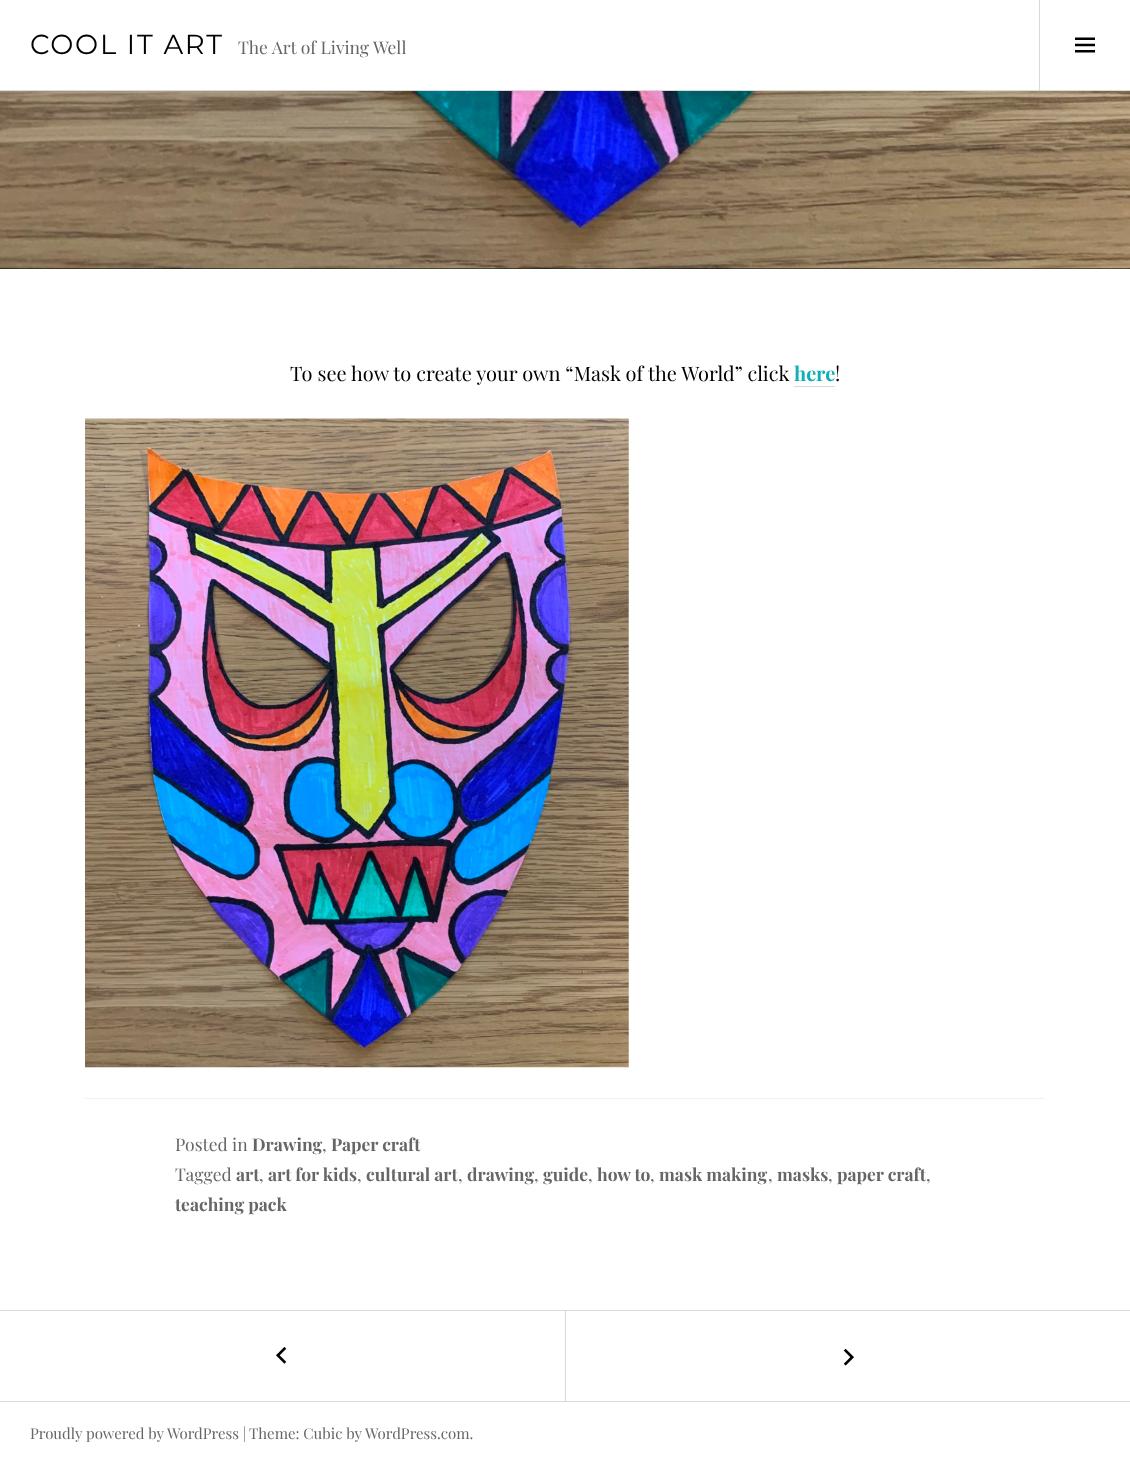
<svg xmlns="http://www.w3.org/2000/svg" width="1130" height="1462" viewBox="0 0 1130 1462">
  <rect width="100%" height="100%" fill="rgb(255,255,255)"/>
  <rect x="0" y="90" width="1130" height="1" fill="rgb(217,217,217)"/>
  <text x="30" y="54" font-family="Montserrat" font-size="27.5" letter-spacing="1.75" fill="rgb(0,0,0)">COOL IT ART</text>
  <text x="238" y="54" font-family="Playfair Display" font-size="17.5" fill="rgb(102,102,102)">The Art of Living Well</text>
  <rect x="1039" y="0" width="1" height="90" fill="rgb(217,217,217)"/>
  <image x="1075" y="37" width="20" height="16" href="pic1.png"/>
  <rect x="0" y="268" width="1130" height="1" fill="rgb(0,0,0)"/>
  <image x="0" y="91" width="1130" height="178" href="pic2.png"/>
  <text x="290" y="381" font-family="Playfair Display" font-size="20" fill="rgb(0,0,0)">To see how to create your own “Mask of the World” click</text>
  <text x="794" y="381" font-family="Playfair Display" font-size="20" font-weight="bold" fill="rgb(16,176,184)">here</text>
  <rect x="794" y="386" width="41" height="1" fill="rgb(217,217,217)"/>
  <text x="835" y="381" font-family="Playfair Display" font-size="20" fill="rgb(0,0,0)">!</text>
  <image x="85" y="418" width="544" height="650" href="pic3.png"/>
  <rect x="85" y="1098" width="960" height="1" fill="rgb(242,242,242)"/>
  <text x="175" y="1151" font-family="Playfair Display" font-size="17.5" fill="rgb(102,102,102)">Posted in</text>
  <text x="252" y="1151" font-family="Playfair Display" font-size="17.5" font-weight="bold" fill="rgb(102,102,102)">Drawing</text>
  <text x="322" y="1151" font-family="Playfair Display" font-size="17.5" fill="rgb(102,102,102)">,</text>
  <text x="331" y="1151" font-family="Playfair Display" font-size="17.5" font-weight="bold" fill="rgb(102,102,102)">Paper craft</text>
  <text x="175" y="1181" font-family="Playfair Display" font-size="17.5" fill="rgb(102,102,102)">Tagged</text>
  <text x="236" y="1181" font-family="Playfair Display" font-size="17.5" font-weight="bold" fill="rgb(102,102,102)">art</text>
  <text x="259" y="1181" font-family="Playfair Display" font-size="17.5" fill="rgb(102,102,102)">,</text>
  <text x="268" y="1181" font-family="Playfair Display" font-size="17.5" font-weight="bold" fill="rgb(102,102,102)">art for kids</text>
  <text x="357" y="1181" font-family="Playfair Display" font-size="17.5" fill="rgb(102,102,102)">,</text>
  <text x="366" y="1181" font-family="Playfair Display" font-size="17.5" font-weight="bold" fill="rgb(102,102,102)">cultural art</text>
  <text x="458" y="1181" font-family="Playfair Display" font-size="17.5" fill="rgb(102,102,102)">,</text>
  <text x="467" y="1181" font-family="Playfair Display" font-size="17.5" font-weight="bold" fill="rgb(102,102,102)">drawing</text>
  <text x="534" y="1181" font-family="Playfair Display" font-size="17.5" fill="rgb(102,102,102)">,</text>
  <text x="543" y="1181" font-family="Playfair Display" font-size="17.5" font-weight="bold" fill="rgb(102,102,102)">guide</text>
  <text x="588" y="1181" font-family="Playfair Display" font-size="17.5" fill="rgb(102,102,102)">,</text>
  <text x="597" y="1181" font-family="Playfair Display" font-size="17.5" font-weight="bold" fill="rgb(102,102,102)">how to</text>
  <text x="650" y="1181" font-family="Playfair Display" font-size="17.5" fill="rgb(102,102,102)">,</text>
  <text x="659" y="1181" font-family="Playfair Display" font-size="17.5" font-weight="bold" fill="rgb(102,102,102)">mask making</text>
  <text x="768" y="1181" font-family="Playfair Display" font-size="17.5" fill="rgb(102,102,102)">,</text>
  <text x="777" y="1181" font-family="Playfair Display" font-size="17.5" font-weight="bold" fill="rgb(102,102,102)">masks</text>
  <text x="828" y="1181" font-family="Playfair Display" font-size="17.5" fill="rgb(102,102,102)">,</text>
  <text x="837" y="1181" font-family="Playfair Display" font-size="17.5" font-weight="bold" fill="rgb(102,102,102)">paper craft</text>
  <text x="926" y="1181" font-family="Playfair Display" font-size="17.5" fill="rgb(102,102,102)">,</text>
  <text x="175" y="1211" font-family="Playfair Display" font-size="17.5" font-weight="bold" fill="rgb(102,102,102)">teaching pack</text>
  <rect x="0" y="1310" width="1130" height="1" fill="rgb(217,217,217)"/>
  <rect x="565" y="1311" width="1" height="90" fill="rgb(217,217,217)"/>
  <image x="276" y="1347" width="11" height="17" href="pic4.png"/>
  <image x="843" y="1348" width="11" height="18" href="pic5.png"/>
  <rect x="0" y="1401" width="1130" height="1" fill="rgb(217,217,217)"/>
  <g font-family="Playfair Display" font-size="15" fill="rgb(102,102,102)">
    <text x="30" y="1439">Proudly powered by WordPress |</text>
    <text x="249" y="1439">Theme: Cubic by</text>
    <text x="365" y="1439">WordPress.com.</text>
  </g>
</svg>
